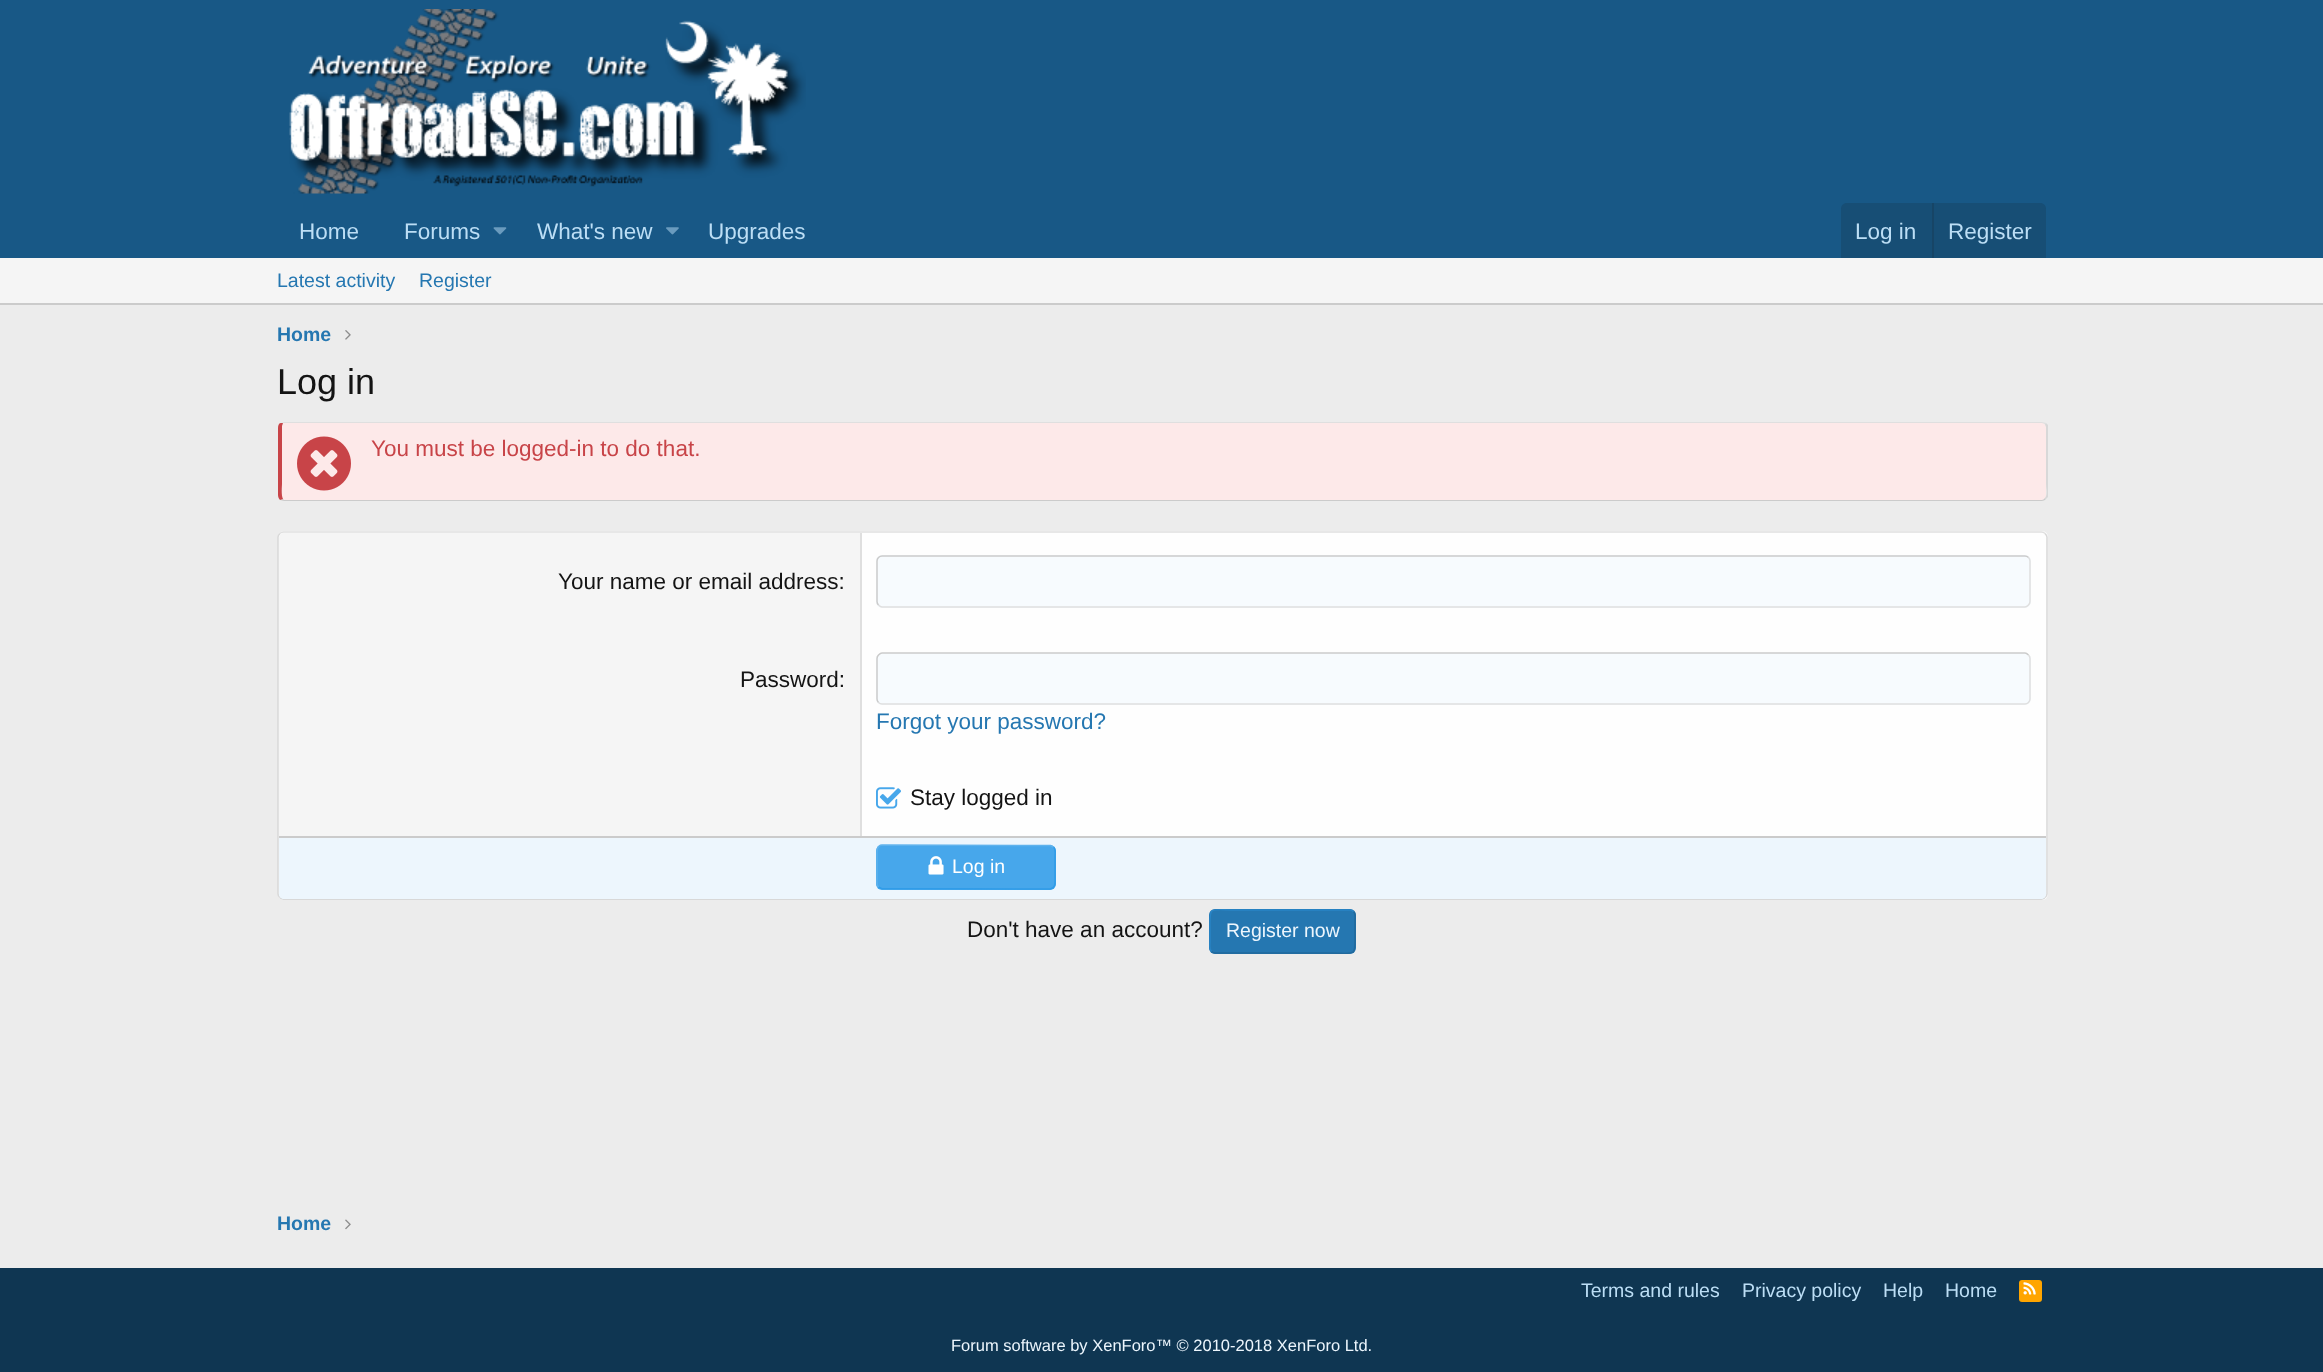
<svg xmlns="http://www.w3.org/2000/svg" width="2323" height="1372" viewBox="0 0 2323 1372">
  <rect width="100%" height="100%" fill="rgb(236,236,236)"/>
  <rect x="0" y="0" width="2323" height="258" fill="rgb(24,88,134)"/>
  <image x="289" y="9" width="517" height="185" href="pic1.png"/>
  <g font-family="Liberation Sans" font-size="22.5" fill="rgb(188,222,245)">
    <text x="299" y="239">Home</text>
    <text x="404" y="239">Forums</text>
  </g>
  <image x="493" y="227" width="14" height="8" href="pic2.png"/>
  <text x="537" y="239" font-family="Liberation Sans" font-size="22.5" fill="rgb(188,222,245)">What's new</text>
  <image x="666" y="227" width="13" height="8" href="pic3.png"/>
  <text x="708" y="239" font-family="Liberation Sans" font-size="22.5" fill="rgb(188,222,245)">Upgrades</text>
  <path d="M1847 203H2040C2043.5 203 2046 205.5 2046 209V258H1841V209C1841 205.5 1843.5 203 1847 203Z" fill="rgb(23,78,117)"/>
  <text x="1855" y="239" font-family="Liberation Sans" font-size="22.5" fill="rgb(188,222,245)">Log in</text>
  <rect x="1932" y="203" width="2" height="55" fill="rgb(23,69,102)"/>
  <text x="1948" y="239" font-family="Liberation Sans" font-size="22.5" fill="rgb(188,222,245)">Register</text>
  <rect x="0" y="258" width="2323" height="45" fill="rgb(245,245,245)"/>
  <rect x="0" y="303" width="2323" height="2" fill="rgb(203,203,203)"/>
  <g font-family="Liberation Sans" font-size="19.5" fill="rgb(37,119,177)">
    <text x="277" y="287">Latest activity</text>
    <text x="419" y="287">Register</text>
  </g>
  <text x="277" y="341" font-family="Liberation Sans" font-size="19.5" font-weight="bold" fill="rgb(37,119,177)">Home</text>
  <image x="345" y="330" width="6" height="10" href="pic4.png"/>
  <text x="277" y="394" font-family="Liberation Sans" font-size="36" fill="rgb(20,20,20)">Log in</text>
  <path d="M284 423H2042C2044 423 2046 425 2046 428V495C2046 497 2044 500 2042 500H284C283 500 282 497 282 495V428C282 425 283 423 284 423Z" fill="rgb(253,233,233)"/>
  <path d="M284 422L281 423H283H284H2042L2045 424L2046 423L2042 422Z" fill="rgb(223,223,223)"/>
  <path d="M2046 423L2048 425V497L2046 499L2045 498C2048 495 2046 487 2046 484V427L2045 424Z" fill="rgb(216,216,216)"/>
  <path d="M284 501H2042C2043 501 2045 500 2046 499L2045 498C2044 499 2043 500 2042 500H284L283 499L280 500Z" fill="rgb(203,203,203)"/>
  <path d="M281 423C279 423 278 425 278 428V495C278 497 279 499 280 500L283 499C281 495 282 486 282 484V426L283 423Z" fill="rgb(200,68,72)"/>
  <image x="297" y="436" width="54" height="55" href="pic5.png"/>
  <text x="371" y="456" font-family="Liberation Sans" font-size="22.5" fill="rgb(200,68,72)">You must be logged-in to do that.</text>
  <rect x="278" y="531" width="1770" height="369" rx="6" fill="rgb(254,254,254)"/>
  <path d="M280 533.5C281 532.5 282 532 283.5 532H2041.5C2043 532 2044 532.5 2045 533.5" fill="none" stroke="rgb(223,223,223)" stroke-width="1.5"/>
  <path d="M2045 533.5C2046 534.5 2047 535.5 2047 537V894C2047 895.5 2046 896.5 2045 897.5" fill="none" stroke="rgb(216,216,216)" stroke-width="1.5"/>
  <path d="M2045 897.5C2044 898.5 2043 899 2041.5 899H283.5C282 899 281 898.5 280 897.5" fill="none" stroke="rgb(203,203,203)" stroke-width="1.5"/>
  <path d="M280 897.5C279 896.5 278 895.5 278 894V537C278 535.5 279 534.5 280 533.5" fill="none" stroke="rgb(216,216,216)" stroke-width="1.5"/>
  <path d="M284 533H861V630H279V538C279 535 281 533 284 533Z" fill="rgb(245,245,245)"/>
  <rect x="860" y="533" width="2" height="303" fill="rgb(223,223,223)"/>
  <text x="558" y="589" font-family="Liberation Sans" font-size="22.5" fill="rgb(20,20,20)">Your name or email address:</text>
  <rect x="876" y="555" width="1155" height="53" rx="6" fill="rgb(247,251,254)"/>
  <path d="M2028.5 557.5C2029.5 558.5 2030 559.5 2030 561V601.5C2030 603 2029.5 604 2028.5 605C2027.5 606 2026.5 607 2025 607H882C880.5 607 879.5 606 878.5 605" fill="none" stroke="rgb(223,223,223)" stroke-width="1.5"/>
  <path d="M878.5 605C877.5 604 877 603 877 601.5V561C877 559.5 877.5 558.5 878.5 557.5C879.5 556.5 880.5 556 882 556H2025C2026.5 556 2027.5 556.5 2028.5 557.5" fill="none" stroke="rgb(203,203,203)" stroke-width="1.5"/>
  <rect x="279" y="630" width="581" height="206" fill="rgb(245,245,245)"/>
  <text x="740" y="687" font-family="Liberation Sans" font-size="22.5" fill="rgb(20,20,20)">Password:</text>
  <rect x="876" y="653" width="1155" height="52" rx="6" fill="rgb(247,251,254)"/>
  <path d="M2028.5 655C2029.5 656 2030 657 2030 658.5V699C2030 700.5 2029.5 701.5 2028.5 702.5C2027.5 703.5 2026.5 704 2025 704H882C880.5 704 879.5 703.5 878.5 702.5" fill="none" stroke="rgb(223,223,223)" stroke-width="1.5"/>
  <path d="M878.5 702.5C877.5 701.5 877 700.5 877 699V658.5C877 657 877.5 656 878.5 655C879.5 654 880.5 653 882 653H2025C2026.5 653 2027.5 654 2028.5 655" fill="none" stroke="rgb(203,203,203)" stroke-width="1.5"/>
  <text x="876" y="729" font-family="Liberation Sans" font-size="22.5" fill="rgb(37,119,177)">Forgot your password?</text>
  <image x="876" y="787" width="25" height="22" href="pic6.png"/>
  <text x="910" y="805" font-family="Liberation Sans" font-size="22.5" fill="rgb(20,20,20)">Stay logged in</text>
  <path d="M279 836H2046V894C2046 897 2044 899 2041 899H284C281 899 279 897 279 894Z" fill="rgb(237,246,253)"/>
  <rect x="279" y="836" width="1767" height="2" fill="rgb(203,203,203)"/>
  <rect x="876" y="845" width="180" height="45" rx="6" fill="rgb(71,167,235)"/>
  <path d="M1053.5 847C1056 849 1055 853 1055 856V878C1055 882 1056 888.5 1050 889L881.5 888.5L878.5 887" fill="none" stroke="rgb(48,156,232)" stroke-width="1.5"/>
  <path d="M878.5 887C876 885 877 881 877 878V856C877 852 876 845.5 882 845L1050.5 845.5L1053.5 847" fill="none" stroke="rgb(94,178,237)" stroke-width="1.5"/>
  <image x="928" y="856" width="16" height="19" href="pic7.png"/>
  <text x="952" y="873" font-family="Liberation Sans" font-size="19.5" fill="rgb(255,255,255)">Log in</text>
  <text x="967" y="937" font-family="Liberation Sans" font-size="22.5" fill="rgb(20,20,20)">Don't have an account?</text>
  <rect x="1209" y="909" width="147" height="45" rx="6" fill="rgb(37,119,177)"/>
  <path d="M1353.5 911.5C1356 913.5 1355 917.5 1355 920.5V931.5C1355 958.5 1358 953 1327.5 953H1215C1213.5 953 1212.5 952.5 1211.5 951.5" fill="none" stroke="rgb(33,105,156)" stroke-width="1.5"/>
  <path d="M1211.5 951.5C1209 949.5 1210 945.5 1210 942.5V931.5C1210 904.5 1207 910 1237.5 910H1350C1351.5 910 1352.5 910.5 1353.5 911.5" fill="none" stroke="rgb(41,133,198)" stroke-width="1.5"/>
  <text x="1226" y="937" font-family="Liberation Sans" font-size="19.5" fill="rgb(237,246,253)">Register now</text>
  <text x="277" y="1230" font-family="Liberation Sans" font-size="19.5" font-weight="bold" fill="rgb(37,119,177)">Home</text>
  <image x="345" y="1219" width="6" height="11" href="pic8.png"/>
  <rect x="0" y="1268" width="2323" height="104" fill="rgb(15,54,82)"/>
  <g font-family="Liberation Sans" font-size="19.5" fill="rgb(188,222,245)">
    <text x="1581" y="1297">Terms and rules</text>
    <text x="1742" y="1297">Privacy policy</text>
    <text x="1883" y="1297">Help</text>
    <text x="1945" y="1297">Home</text>
  </g>
  <rect x="2019" y="1280" width="23" height="22" rx="3" fill="rgb(255,165,0)"/>
  <image x="2023" y="1282" width="13" height="13" href="pic9.png"/>
  <text x="951" y="1351" font-family="Liberation Sans" font-size="16.5" fill="rgb(237,246,253)">Forum software by XenForo™ © 2010-2018 XenForo Ltd.</text>
</svg>
